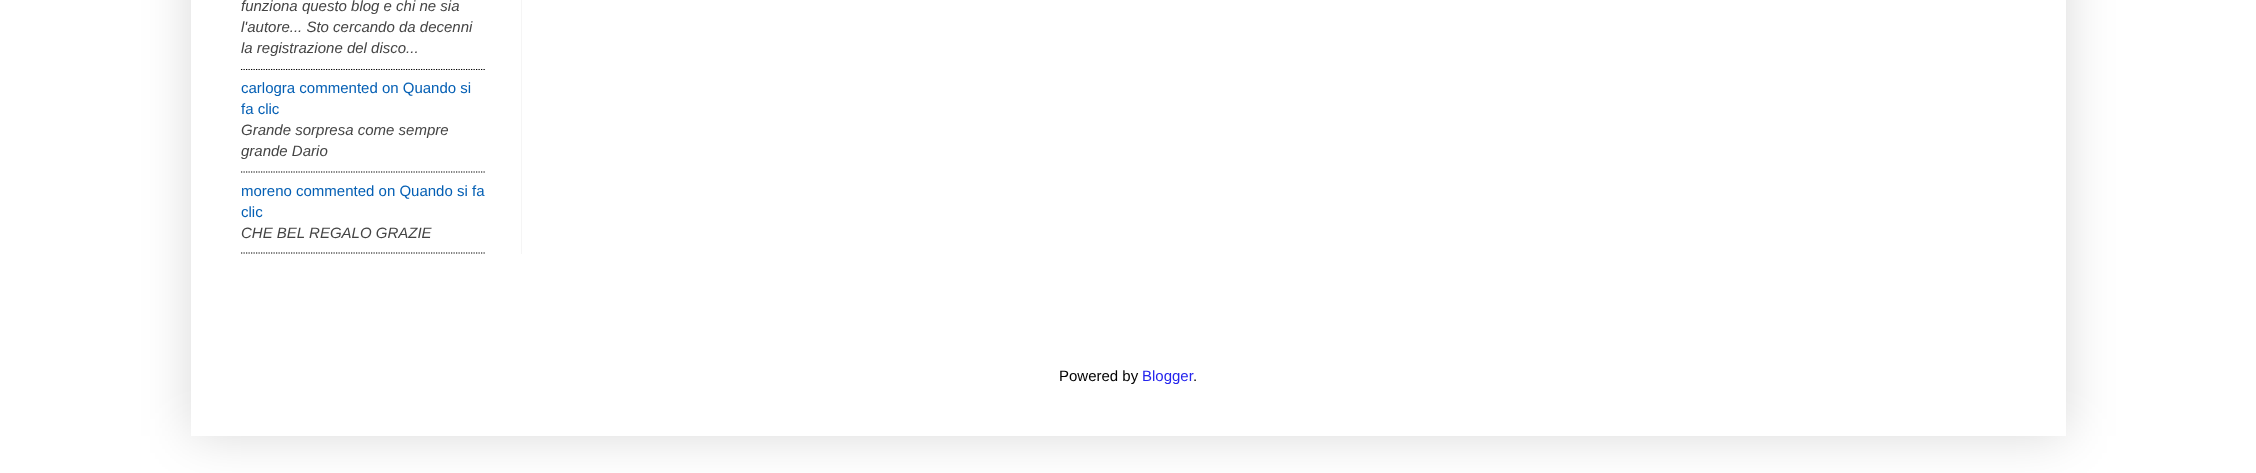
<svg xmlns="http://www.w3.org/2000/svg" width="2256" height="473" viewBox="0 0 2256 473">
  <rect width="100%" height="100%" fill="rgb(255,255,255)"/>
  <rect x="191" y="-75" width="1875" height="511" fill="rgba(0,0,0,0.15)" filter="blur(25px)"/>
  <rect x="191" y="0" width="1875" height="436" fill="rgb(255,255,255)"/>
  <path d="M241 69.5H485" fill="none" stroke="rgb(0,0,0)" stroke-width="1.2" stroke-dasharray="1.25 1.25"/>
  <g font-family="Liberation Sans" font-size="15" font-style="italic" fill="rgb(68,68,68)">
    <text>
      <tspan x="241" y="11">funziona questo blog e chi ne sia</tspan>
      <tspan x="241" y="32">l'autore... Sto cercando da decenni</tspan>
      <tspan x="241" y="53">la registrazione del disco...</tspan>
    </text>
  </g>
  <path d="M241 172H485" fill="none" stroke="rgb(0,0,0)" stroke-width="1.2" stroke-dasharray="1.25 1.25"/>
  <g font-family="Liberation Sans" font-size="15" fill="rgb(4,95,180)">
    <text>
      <tspan x="241" y="93">carlogra commented on Quando si</tspan>
      <tspan x="241" y="114">fa clic</tspan>
    </text>
  </g>
  <g font-family="Liberation Sans" font-size="15" font-style="italic" fill="rgb(68,68,68)">
    <text>
      <tspan x="241" y="135">Grande sorpresa come sempre</tspan>
      <tspan x="241" y="156">grande Dario</tspan>
    </text>
  </g>
  <path d="M241 253H485" fill="none" stroke="rgb(0,0,0)" stroke-width="1.2" stroke-dasharray="1.25 1.25"/>
  <g font-family="Liberation Sans" font-size="15" fill="rgb(4,95,180)">
    <text>
      <tspan x="241" y="196">moreno commented on Quando si fa</tspan>
      <tspan x="241" y="217">clic</tspan>
    </text>
  </g>
  <text x="241" y="238" font-family="Liberation Sans" font-size="15" font-style="italic" fill="rgb(68,68,68)">CHE BEL REGALO GRAZIE</text>
  <rect x="521" y="0" width="1" height="254" fill="rgb(245,245,245)"/>
  <text x="1059" y="381" font-family="Liberation Sans" font-size="15" fill="rgb(0,0,0)">Powered by</text>
  <text x="1142" y="381" font-family="Liberation Sans" font-size="15" fill="rgb(36,36,237)">Blogger</text>
  <text x="1193" y="381" font-family="Liberation Sans" font-size="15" fill="rgb(0,0,0)">.</text>
</svg>
